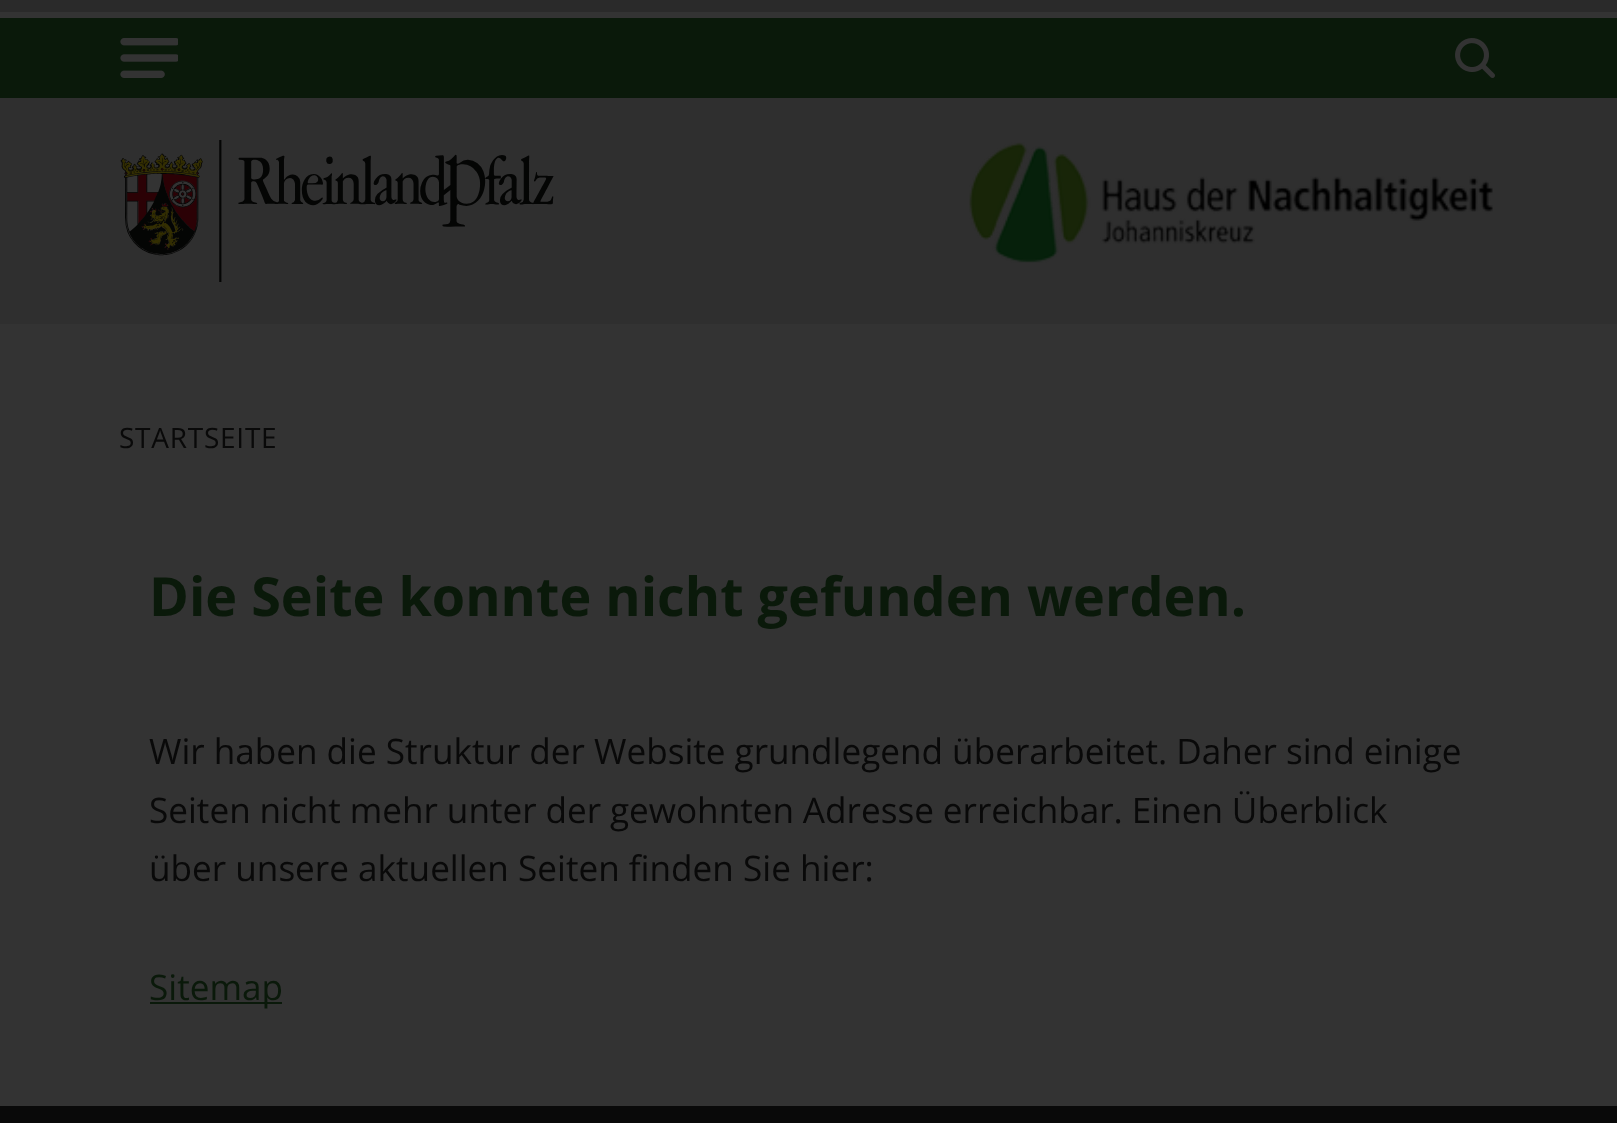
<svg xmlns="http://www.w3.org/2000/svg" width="1617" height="1123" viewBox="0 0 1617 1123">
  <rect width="100%" height="100%" fill="rgb(51,51,51)"/>
  <rect x="0" y="0" width="1617" height="12" fill="rgb(42,42,42)"/>
  <rect x="0" y="18" width="1617" height="80" fill="rgb(10,25,10)"/>
  <image x="120" y="38" width="58" height="40" href="pic1.png"/>
  <image x="1455" y="38" width="40" height="40" href="pic2.png"/>
  <rect x="0" y="98" width="1617" height="226" fill="rgb(47,47,47)"/>
  <image x="120" y="140" width="434" height="142" href="pic3.png"/>
  <image x="969" y="142" width="524" height="121" href="pic4.png"/>
  <text x="119" y="448" font-family="Open Sans" font-size="28" letter-spacing="0.75" fill="rgb(9,9,9)">STARTSEITE</text>
  <text x="149" y="616" font-family="Open Sans" font-size="53.9" font-weight="bold" fill="rgb(10,25,10)">Die Seite konnte nicht gefunden werden.</text>
  <g font-family="Open Sans" font-size="35.15" fill="rgb(9,9,9)">
    <text>
      <tspan x="149" y="764" word-spacing="-0.1">Wir haben die Struktur der Website grundlegend überarbeitet. Daher sind einige</tspan>
      <tspan x="149" y="823" word-spacing="-0.25">Seiten nicht mehr unter der gewohnten Adresse erreichbar. Einen Überblick</tspan>
      <tspan x="149" y="881">über unsere aktuellen Seiten finden Sie hier:</tspan>
    </text>
  </g>
  <rect x="150" y="1002" width="132" height="2" fill="rgb(10,25,10)"/>
  <text x="149" y="1000" font-family="Open Sans" font-size="35.15" fill="rgb(10,25,10)">Sitemap</text>
  <rect x="0" y="1106" width="1617" height="17" fill="rgb(9,9,9)"/>
</svg>
